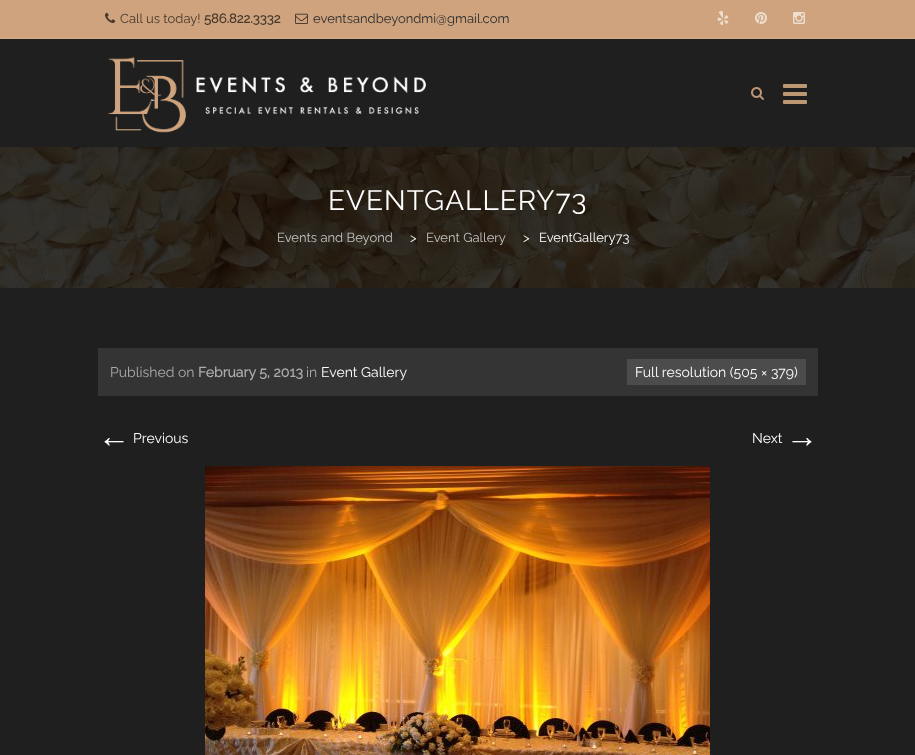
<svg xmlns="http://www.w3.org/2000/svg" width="915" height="755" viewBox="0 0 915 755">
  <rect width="100%" height="100%" fill="rgb(31,31,31)"/>
  <rect x="0" y="0" width="915" height="38" fill="rgb(206,163,125)"/>
  <rect x="0" y="38" width="915" height="1" fill="rgb(210,170,135)"/>
  <image x="105" y="12" width="11" height="11" href="pic1.png"/>
  <text x="120" y="23" font-family="Raleway" font-size="13" font-weight="100" fill="rgb(72,57,44)">Call us today!</text>
  <text x="204" y="23" font-family="Raleway" font-size="13" font-weight="bold" fill="rgb(72,57,44)">586.822.3332</text>
  <image x="295" y="13" width="13" height="11" href="pic2.png"/>
  <text x="313" y="23" font-family="Raleway" font-size="13" font-weight="100" fill="rgb(45,45,45)">eventsandbeyondmi@gmail.com</text>
  <image x="717" y="11" width="12" height="14" href="pic3.png"/>
  <image x="755" y="12" width="12" height="12" href="pic4.png"/>
  <image x="793" y="12" width="12" height="12" href="pic5.png"/>
  <image x="108" y="56" width="318" height="77" href="pic6.png"/>
  <image x="751" y="87" width="13" height="13" href="pic7.png"/>
  <image x="783" y="84" width="24" height="20" href="pic8.png"/>
  <image x="0" y="147" width="915" height="141" href="pic9.png"/>
  <text x="328" y="210" font-family="Raleway" font-size="28" font-weight="100" letter-spacing="1" fill="rgb(255,255,255)">EVENTGALLERY73</text>
  <text x="277" y="242" font-family="Raleway" font-size="13" font-weight="100" fill="rgb(196,194,192)">Events and Beyond</text>
  <text x="410" y="242" font-family="Raleway" font-size="13" font-weight="100" fill="rgb(255,255,255)">&gt;</text>
  <text x="426" y="242" font-family="Raleway" font-size="13" font-weight="100" fill="rgb(196,194,192)">Event Gallery</text>
  <g font-family="Raleway" font-size="13" font-weight="100" fill="rgb(255,255,255)">
    <text x="523" y="242">&gt;</text>
    <text x="539" y="242">EventGallery73</text>
  </g>
  <rect x="98" y="348" width="720" height="48" fill="rgb(52,52,52)"/>
  <text x="110" y="377" font-family="Raleway" font-size="14" font-weight="100" fill="rgb(171,171,171)">Published on</text>
  <text x="198" y="377" font-family="Raleway" font-size="14" font-weight="bold" fill="rgb(171,171,171)">February 5, 2013</text>
  <text x="306" y="377" font-family="Raleway" font-size="14" font-weight="100" fill="rgb(171,171,171)">in</text>
  <text x="321" y="377" font-family="Raleway" font-size="14" font-weight="100" fill="rgb(255,255,255)">Event Gallery</text>
  <rect x="627" y="359" width="179" height="26" fill="rgb(76,76,76)"/>
  <text x="635" y="377" font-family="Raleway" font-size="14" font-weight="100" fill="rgb(255,255,255)">Full resolution (505 × 379)</text>
  <text x="98" y="447" font-family="Liberation Sans" font-size="32" fill="rgb(255,255,255)">←</text>
  <g font-family="Raleway" font-size="14" font-weight="100" fill="rgb(255,255,255)">
    <text x="133" y="443">Previous</text>
    <text x="752" y="443">Next</text>
  </g>
  <text x="786" y="447" font-family="Liberation Sans" font-size="32" fill="rgb(255,255,255)">→</text>
  <image x="205" y="466" width="505" height="289" href="pic10.png"/>
</svg>
